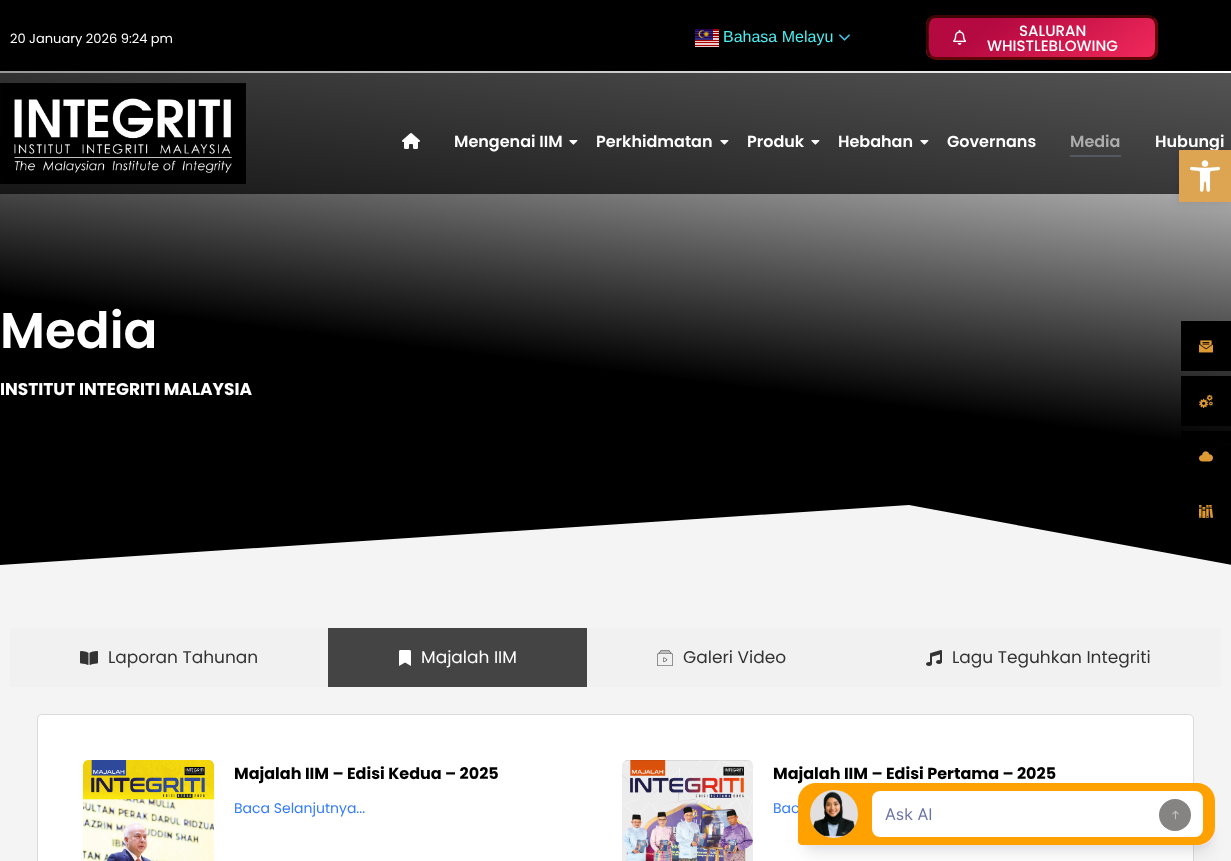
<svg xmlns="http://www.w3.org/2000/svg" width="1231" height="861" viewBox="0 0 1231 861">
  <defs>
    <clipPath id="clip1"><rect x="926" y="15" width="232" height="45" rx="10"/></clipPath>
    <linearGradient id="g1" gradientUnits="userSpaceOnUse" x1="770" y1="-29" x2="862" y2="104"><stop offset="0.26" stop-color="rgb(180,9,65)"/><stop offset="1" stop-color="rgb(242,41,91)"/></linearGradient>
    <linearGradient id="g2" gradientUnits="userSpaceOnUse" x1="996" y1="-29" x2="1088" y2="104"><stop offset="0.26" stop-color="rgb(180,9,65)"/><stop offset="1" stop-color="rgb(242,41,91)"/></linearGradient>
    <linearGradient id="g3" gradientUnits="userSpaceOnUse" x1="1222" y1="-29" x2="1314" y2="104"><stop offset="0.26" stop-color="rgb(180,9,65)"/><stop offset="1" stop-color="rgb(242,41,91)"/></linearGradient>
    <linearGradient id="g4" gradientUnits="userSpaceOnUse" x1="655" y1="0.2" x2="576" y2="639"><stop offset="0" stop-color="rgb(255,255,255)"/><stop offset="0.58" stop-color="rgb(0,0,0)"/></linearGradient>
    <linearGradient id="g5" gradientUnits="userSpaceOnUse" x1="655" y1="0.2" x2="576" y2="639"><stop offset="0" stop-color="rgb(84,84,84)"/><stop offset="0.58" stop-color="rgb(0,0,0)"/></linearGradient>
  </defs>
  <rect width="100%" height="100%" fill="rgb(244,244,244)"/>
  <rect x="0" y="0" width="1231" height="71" fill="rgb(0,0,0)"/>
  <text x="10" y="43" font-family="Poppins" font-size="13" fill="rgb(255,255,255)">20 January 2026 9:24 pm</text>
  <image x="695" y="29" width="24" height="18" href="pic1.png"/>
  <text x="723" y="42" font-family="Liberation Sans" font-size="16" fill="rgb(75,239,242)">Bahasa Melayu</text>
  <image x="839" y="34" width="11" height="7" href="pic2.png"/>
  <g clip-path="url(#clip1)">
    <rect x="926" y="18" width="3" height="39" fill="url(#g1)"/>
  </g>
  <rect x="929" y="18" width="226" height="39" fill="url(#g2)"/>
  <g clip-path="url(#clip1)">
    <rect x="1155" y="18" width="3" height="39" fill="url(#g3)"/>
  </g>
  <path d="M1154 19C1158 23 1156.5 32.5 1156.5 37.5C1156.5 44.5 1159 58.5 1148 58.5H936C934 58.5 931.5 57.5 930 56" fill="none" stroke="rgb(95,7,7)" stroke-width="3"/>
  <path d="M930 56C926 52 927.5 42.5 927.5 37.5C927.5 30.5 925 16.5 936 16.5H1148C1150 16.5 1152.5 17.5 1154 19" fill="none" stroke="rgb(63,5,5)" stroke-width="3"/>
  <image x="953" y="29" width="14" height="16" href="pic3.png"/>
  <g font-family="Poppins" font-size="15" font-weight="500" fill="rgb(255,255,255)">
    <text x="1019" y="36">SALURAN</text>
    <text x="987" y="51">WHISTLEBLOWING</text>
  </g>
  <rect x="0" y="71" width="1231" height="494" fill="url(#g4)"/>
  <rect x="0" y="73" width="1231" height="121" fill="url(#g5)"/>
  <image x="0" y="83" width="246" height="101" href="pic4.png"/>
  <image x="402" y="133" width="18" height="16" href="pic5.png"/>
  <text x="454" y="147" font-family="Poppins" font-size="16" font-weight="600" fill="rgb(255,255,255)">Mengenai IIM</text>
  <image x="569" y="140" width="9" height="5" href="pic6.png"/>
  <text x="596" y="147" font-family="Poppins" font-size="16" font-weight="600" fill="rgb(255,255,255)">Perkhidmatan</text>
  <image x="720" y="140" width="9" height="5" href="pic7.png"/>
  <text x="747" y="147" font-family="Poppins" font-size="16" font-weight="600" fill="rgb(255,255,255)">Produk</text>
  <image x="811" y="140" width="9" height="5" href="pic8.png"/>
  <text x="838" y="147" font-family="Poppins" font-size="16" font-weight="600" fill="rgb(255,255,255)">Hebahan</text>
  <image x="920" y="140" width="9" height="5" href="pic9.png"/>
  <text x="947" y="147" font-family="Poppins" font-size="16" font-weight="600" fill="rgb(255,255,255)">Governans</text>
  <text x="1070" y="147" font-family="Poppins" font-size="16" font-weight="600" fill="rgb(172,172,172)">Media</text>
  <rect x="1070" y="155" width="51" height="2" fill="rgb(84,89,95)"/>
  <text x="1155" y="147" font-family="Poppins" font-size="16" font-weight="600" fill="rgb(255,255,255)">Hubungi</text>
  <rect x="1179" y="150" width="52" height="52" fill="rgba(0,0,0,0.1)" filter="blur(5px)"/>
  <rect x="1179" y="150" width="52" height="52" fill="rgb(221,165,82)"/>
  <image x="1190" y="160" width="30" height="32" href="pic10.png"/>
  <text x="0" y="348" font-family="Poppins" font-size="50" font-weight="600" fill="rgb(255,255,255)">Media</text>
  <text x="0" y="395" font-family="Poppins" font-size="17" font-weight="bold" fill="rgb(255,255,255)">INSTITUT INTEGRITI MALAYSIA</text>
  <path d="M909 505L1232 565V569H0V565Z" fill="rgb(244,244,244)"/>
  <rect x="10" y="628" width="318" height="59" fill="rgb(241,241,241)"/>
  <image x="80" y="651" width="18" height="14" href="pic11.png"/>
  <text x="108" y="663" font-family="Poppins" font-size="17" fill="rgb(51,51,51)">Laporan Tahunan</text>
  <rect x="328" y="628" width="259" height="59" fill="rgb(68,68,68)"/>
  <image x="399" y="650" width="12" height="16" href="pic12.png"/>
  <text x="421" y="663" font-family="Poppins" font-size="17" fill="rgb(255,255,255)">Majalah IIM</text>
  <rect x="587" y="628" width="634" height="59" fill="rgb(241,241,241)"/>
  <image x="657" y="650" width="16" height="16" href="pic13.png"/>
  <text x="683" y="663" font-family="Poppins" font-size="17" fill="rgb(51,51,51)">Galeri Video</text>
  <image x="926" y="650" width="16" height="16" href="pic14.png"/>
  <text x="952" y="663" font-family="Poppins" font-size="17" fill="rgb(51,51,51)">Lagu Teguhkan Integriti</text>
  <rect x="37.5" y="714.5" width="1156" height="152" rx="4.5" fill="rgb(255,255,255)" stroke="rgb(218,218,218)"/>
  <image x="83" y="760" width="131" height="101" href="pic15.png"/>
  <text x="234" y="779" font-family="Poppins" font-size="16" font-weight="bold" fill="rgb(0,0,0)">Majalah IIM – Edisi Kedua – 2025</text>
  <text x="234" y="813" font-family="Poppins" font-size="14" fill="rgb(53,124,249)">Baca Selanjutnya...</text>
  <image x="622" y="760" width="131" height="101" href="pic16.png"/>
  <text x="773" y="779" font-family="Poppins" font-size="16" font-weight="bold" fill="rgb(0,0,0)">Majalah IIM – Edisi Pertama – 2025</text>
  <text x="773" y="813" font-family="Poppins" font-size="14" fill="rgb(53,124,249)">Bac</text>
  <rect x="1181" y="321" width="50" height="50" fill="rgb(0,0,0)"/>
  <image x="1199" y="340" width="14" height="13" href="pic17.png"/>
  <rect x="1181" y="376" width="50" height="50" fill="rgb(0,0,0)"/>
  <image x="1199" y="394" width="14" height="14" href="pic18.png"/>
  <rect x="1181" y="431" width="50" height="13" fill="rgb(0,0,0)"/>
  <image x="1199" y="451" width="14" height="11" href="pic19.png"/>
  <image x="1199" y="504" width="14" height="14" href="pic20.png"/>
  <rect x="802" y="833" width="409" height="20" rx="12" fill="rgba(16,24,40,0.1)" filter="blur(8px)"/>
  <rect x="800" y="823" width="413" height="24" rx="14" fill="rgba(16,24,40,0.05)" filter="blur(3px)"/>
  <path d="M798 817H1215V829C1215 838 1208 845 1199 845H814C805 845 798 838 798 829ZM799 817H1214V829C1214 837 1207 844 1199 844H814C806 844 799 837 799 829Z" fill="rgb(255,229,255)" fill-rule="evenodd"/>
  <path d="M816 783H1197C1207 783 1215 791 1215 801V827C1215 837 1207 845 1197 845H802C800 845 798 843 798 841V801C798 791 806 783 816 783Z" fill="rgb(255,161,0)"/>
  <circle cx="834" cy="814" r="24" fill="rgb(225,223,224)"/>
  <image x="813" y="791" width="42" height="46" href="pic21.png"/>
  <rect x="872" y="791" width="331" height="46" rx="8" fill="rgb(255,255,255)"/>
  <text x="885" y="820" font-family="Inter" font-size="16" fill="rgb(108,115,168)">Ask AI</text>
  <circle cx="1175" cy="815" r="16" fill="rgb(133,132,131)"/>
  <image x="1172" y="810" width="7" height="10" href="pic22.png"/>
</svg>
